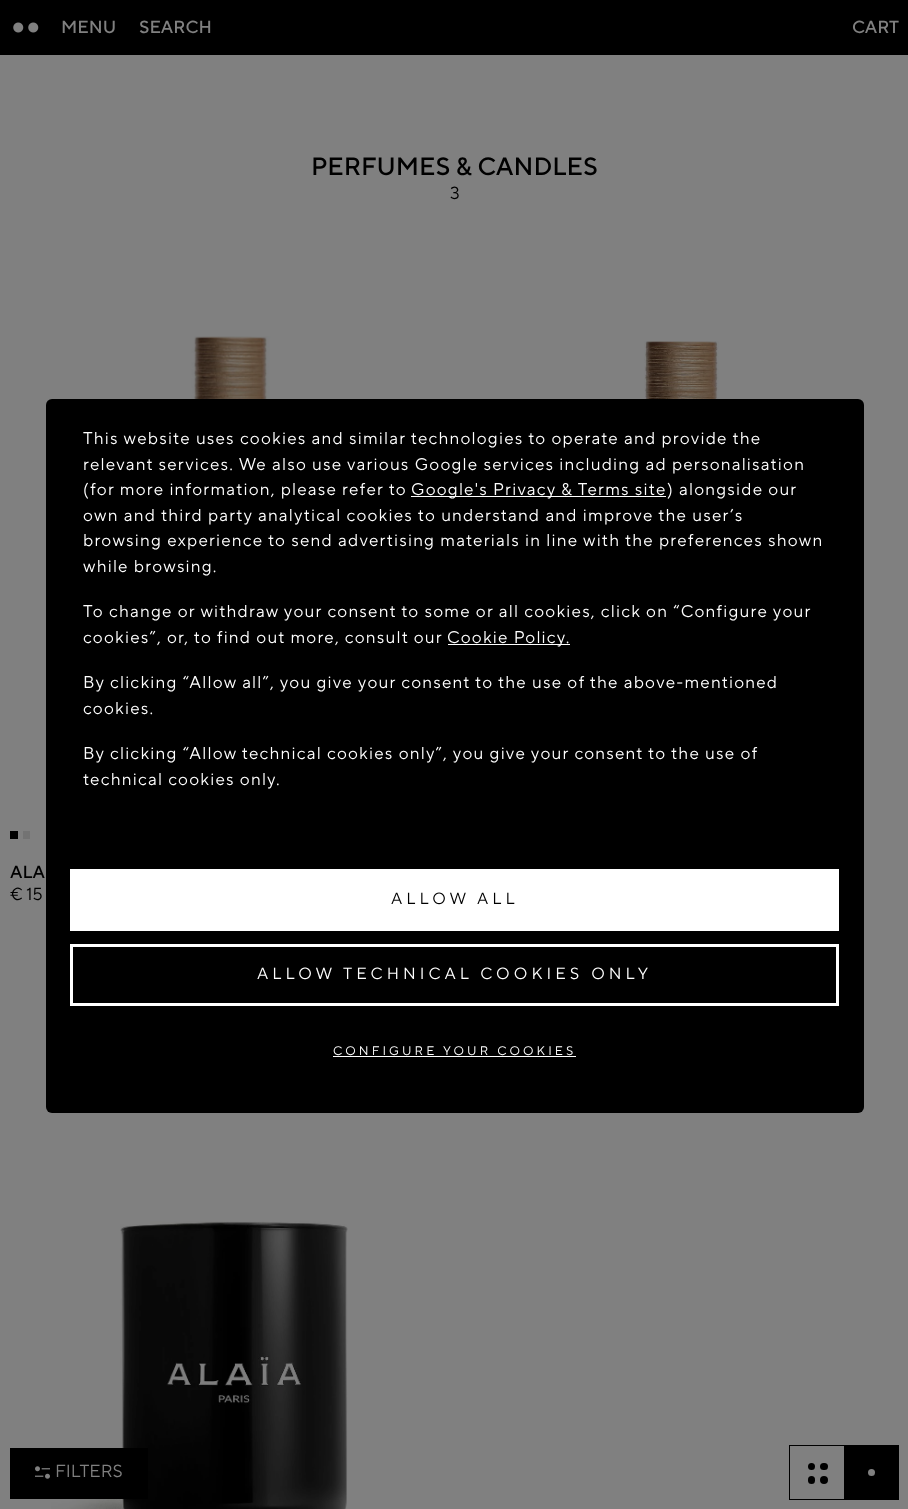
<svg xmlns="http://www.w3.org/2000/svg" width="908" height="1509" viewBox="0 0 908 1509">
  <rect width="100%" height="100%" fill="rgb(128,128,128)"/>
  <rect x="0" y="0" width="908" height="55" fill="rgb(0,0,0)"/>
  <image x="13" y="22" width="26" height="11" href="pic1.png"/>
  <g font-family="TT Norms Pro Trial" font-size="17.5" font-weight="500" fill="rgb(128,128,128)">
    <text x="61" y="33">MENU</text>
    <text x="139" y="33">SEARCH</text>
    <text x="852" y="33">CART</text>
  </g>
  <text x="311" y="175" font-family="TT Norms Pro Trial" font-size="25" font-weight="500" fill="rgb(0,0,0)">PERFUMES &amp; CANDLES</text>
  <text x="450" y="199" font-family="TT Norms Pro Trial" font-size="17.5" fill="rgb(0,0,0)">3</text>
  <image x="511" y="341" width="246" height="58" href="pic2.png"/>
  <image x="58" y="336" width="251" height="63" href="pic3.png"/>
  <rect x="10" y="831" width="8" height="8" fill="rgb(0,0,0)"/>
  <rect x="23" y="831" width="7" height="8" fill="rgb(115,115,115)"/>
  <text x="10" y="878" font-family="TT Norms Pro Trial" font-size="17.5" font-weight="500" fill="rgb(0,0,0)">ALA</text>
  <text x="10" y="900" font-family="TT Norms Pro Trial" font-size="17.5" fill="rgb(0,0,0)">€ 15</text>
  <image x="51" y="1221" width="297" height="288" href="pic4.png"/>
  <rect x="10" y="1448" width="138" height="51" fill="rgb(0,0,0)"/>
  <image x="35" y="1466" width="15" height="13" href="pic5.png"/>
  <text x="55" y="1477" font-family="TT Norms Pro Trial" font-size="17.5" fill="rgb(128,128,128)">FILTERS</text>
  <rect x="789" y="1445" width="55" height="1" fill="rgb(0,0,0)"/>
  <rect x="789" y="1499" width="55" height="1" fill="rgb(0,0,0)"/>
  <rect x="789" y="1445" width="1" height="55" fill="rgb(0,0,0)"/>
  <circle cx="811.5" cy="1466.5" r="3.5" fill="rgb(0,0,0)"/>
  <rect x="820" y="1463" width="8" height="7" rx="3.5" fill="rgb(0,0,0)"/>
  <rect x="808" y="1476" width="7" height="8" rx="3.5" fill="rgb(0,0,0)"/>
  <circle cx="824" cy="1480" r="4" fill="rgb(0,0,0)"/>
  <rect x="844" y="1445" width="55" height="55" fill="rgb(0,0,0)"/>
  <circle cx="871.5" cy="1472.5" r="3.5" fill="rgb(128,128,128)"/>
  <rect x="46" y="399" width="818" height="714" rx="6" fill="rgb(0,0,0)"/>
  <g font-family="TT Norms Pro Trial" font-size="17" letter-spacing="1.22" fill="rgb(255,255,255)">
    <text>
      <tspan x="83" y="444">This website uses cookies and similar technologies to operate and provide the</tspan>
      <tspan x="83" y="470">relevant services. We also use various Google services including ad personalisation</tspan>
      <tspan x="83" y="495">(for more information, please refer to</tspan>
    </text>
  </g>
  <rect x="411" y="496" width="255" height="1" fill="rgb(255,255,255)"/>
  <g font-family="TT Norms Pro Trial" font-size="17" letter-spacing="1.22" fill="rgb(255,255,255)">
    <text x="411" y="495">Google's Privacy &amp; Terms site</text>
    <text x="667" y="495">) alongside our</text>
    <text>
      <tspan x="83" y="521">own and third party analytical cookies to understand and improve the user’s</tspan>
      <tspan x="83" y="546">browsing experience to send advertising materials in line with the preferences shown</tspan>
      <tspan x="83" y="572">while browsing.</tspan>
    </text>
    <text>
      <tspan x="83" y="617">To change or withdraw your consent to some or all cookies, click on “Configure your</tspan>
      <tspan x="83" y="643">cookies”, or, to find out more, consult our</tspan>
    </text>
  </g>
  <rect x="448" y="644" width="122" height="1" fill="rgb(255,255,255)"/>
  <g font-family="TT Norms Pro Trial" font-size="17" letter-spacing="1.22" fill="rgb(255,255,255)">
    <text x="447" y="643">Cookie Policy.</text>
    <text>
      <tspan x="83" y="688">By clicking “Allow all”, you give your consent to the use of the above-mentioned</tspan>
      <tspan x="83" y="714">cookies.</tspan>
    </text>
    <text>
      <tspan x="83" y="759">By clicking “Allow technical cookies only”, you give your consent to the use of</tspan>
      <tspan x="83" y="785">technical cookies only.</tspan>
    </text>
  </g>
  <rect x="70" y="869" width="769" height="62" fill="rgb(255,255,255)"/>
  <text x="391" y="904" font-family="TT Norms Pro Trial" font-size="16.25" letter-spacing="4.05" fill="rgb(0,0,0)">ALLOW ALL</text>
  <rect x="71.5" y="945.5" width="766" height="59" fill="none" stroke="rgb(255,255,255)" stroke-width="3"/>
  <text x="257" y="979" font-family="TT Norms Pro Trial" font-size="16.25" letter-spacing="4.05" fill="rgb(255,255,255)">ALLOW TECHNICAL COOKIES ONLY</text>
  <text x="333" y="1055" font-family="TT Norms Pro Trial" font-size="12.5" letter-spacing="3.1" fill="rgb(255,255,255)">CONFIGURE YOUR COOKIES</text>
  <rect x="333" y="1056" width="243" height="1" fill="rgb(255,255,255)"/>
</svg>
